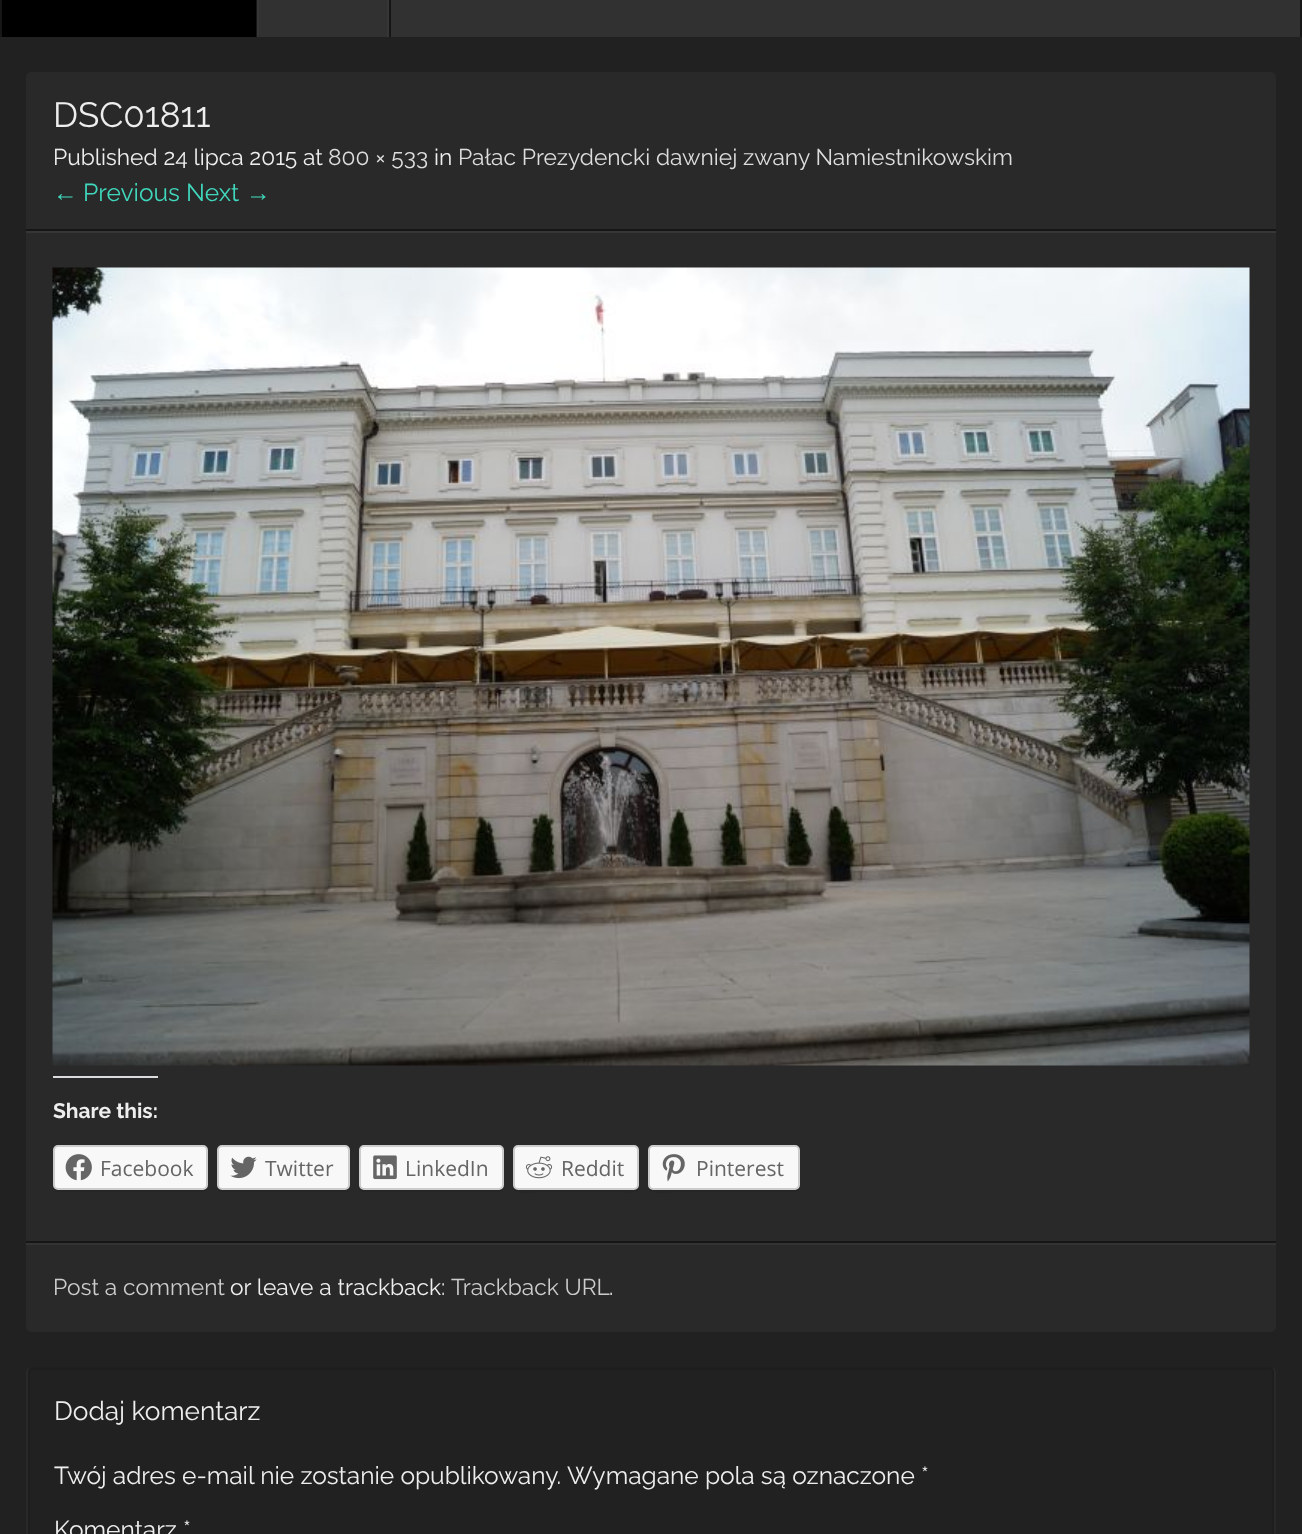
<svg xmlns="http://www.w3.org/2000/svg" width="1302" height="1534" viewBox="0 0 1302 1534">
  <rect width="100%" height="100%" fill="rgb(33,33,33)"/>
  <rect x="259" y="0" width="1041" height="37" fill="rgb(49,49,49)"/>
  <rect x="1300" y="0" width="2" height="37" fill="rgb(22,22,22)"/>
  <rect x="0" y="0" width="2" height="37" fill="rgb(22,22,22)"/>
  <rect x="2" y="0" width="254" height="37" fill="rgb(0,0,0)"/>
  <rect x="389" y="0" width="2" height="37" fill="rgb(22,22,22)"/>
  <rect x="256" y="0" width="1" height="37" fill="rgb(22,22,22)"/>
  <rect x="387" y="0" width="2" height="37" fill="rgb(54,54,54)"/>
  <rect x="257" y="0" width="2" height="37" fill="rgb(54,54,54)"/>
  <rect x="26" y="72" width="1250" height="1260" rx="5" fill="rgb(41,41,41)"/>
  <rect x="26" y="229" width="1250" height="2" fill="rgb(22,22,22)"/>
  <text x="53" y="127" font-family="Raleway" font-size="35" fill="rgb(238,238,238)">DSC01811</text>
  <text x="53" y="165" font-family="Raleway" font-size="22.75" fill="rgb(238,238,238)">Published 24 lipca 2015 at</text>
  <text x="328" y="165" font-family="Raleway" font-size="22.75" fill="rgb(221,221,221)">800 × 533</text>
  <text x="434" y="165" font-family="Raleway" font-size="22.75" fill="rgb(238,238,238)">in</text>
  <text x="458" y="165" font-family="Raleway" font-size="22.75" fill="rgb(221,221,221)">Pałac Prezydencki dawniej zwany Namiestnikowskim</text>
  <text x="53" y="201" font-family="Liberation Sans" font-size="24.5" fill="rgb(64,215,188)">←</text>
  <text x="83" y="201" font-family="Raleway" font-size="24.5" fill="rgb(64,215,188)">Previous Next</text>
  <text x="246" y="201" font-family="Liberation Sans" font-size="24.5" fill="rgb(64,215,188)">→</text>
  <rect x="26" y="231" width="1250" height="2" fill="rgb(54,54,54)"/>
  <rect x="26" y="1241" width="1250" height="2" fill="rgb(22,22,22)"/>
  <image x="52" y="267" width="1198" height="799" href="pic1.png"/>
  <rect x="53" y="1076" width="105" height="2" fill="rgb(220,220,222)"/>
  <text x="53" y="1118" font-family="Raleway" font-size="21" font-weight="bold" fill="rgb(238,238,238)">Share this:</text>
  <path d="M53 1187C53 1189 55 1191 57 1192H203C206 1192 208 1189 208 1186C207 1188 205 1190 203 1190H58C56 1190 54 1189 53 1187Z" fill="rgb(38,38,38)"/>
  <rect x="54" y="1146" width="153" height="43" rx="4" fill="rgb(248,248,248)" stroke="rgb(204,204,204)" stroke-width="2"/>
  <image x="65" y="1154" width="27" height="27" href="pic2.png"/>
  <text x="100" y="1176" font-family="Open Sans" font-size="21" fill="rgb(101,101,101)">Facebook</text>
  <path d="M217 1185V1187C217 1190 219 1192 222 1192H345C348 1192 350 1190 350 1187V1185C350 1188 348 1190 345 1190H222C219 1190 217 1188 217 1185Z" fill="rgb(38,38,38)"/>
  <rect x="218" y="1146" width="131" height="43" rx="4" fill="rgb(248,248,248)" stroke="rgb(204,204,204)" stroke-width="2"/>
  <image x="230" y="1156" width="27" height="23" href="pic3.png"/>
  <text x="265" y="1176" font-family="Open Sans" font-size="21" fill="rgb(101,101,101)">Twitter</text>
  <path d="M359 1186V1187C359 1190 361 1192 364 1192H499C502 1192 504 1190 504 1187V1185C504 1188 502 1190 499 1190H364C362 1190 360 1188 359 1186Z" fill="rgb(38,38,38)"/>
  <rect x="360" y="1146" width="143" height="43" rx="4" fill="rgb(248,248,248)" stroke="rgb(204,204,204)" stroke-width="2"/>
  <image x="373" y="1155" width="24" height="25" href="pic4.png"/>
  <text x="405" y="1176" font-family="Open Sans" font-size="21" fill="rgb(101,101,101)">LinkedIn</text>
  <path d="M513 1186C513 1197 535 1192 537 1192H615C640 1192 639 1197 639 1175V1149V1186L637 1188L635 1190H518C516 1190 514 1189 513 1186Z" fill="rgb(38,38,38)"/>
  <rect x="514" y="1146" width="124" height="43" rx="4" fill="rgb(248,248,248)" stroke="rgb(204,204,204)" stroke-width="2"/>
  <image x="525" y="1156" width="28" height="23" href="pic5.png"/>
  <text x="561" y="1176" font-family="Open Sans" font-size="21" fill="rgb(101,101,101)">Reddit</text>
  <path d="M648 1187C648 1196 667 1192 677 1192H795C801 1192 800 1185 800 1181V1149V1185C800 1188 797 1190 794 1190H653C651 1190 649 1189 648 1187Z" fill="rgb(38,38,38)"/>
  <rect x="649" y="1146" width="150" height="43" rx="4" fill="rgb(248,248,248)" stroke="rgb(204,204,204)" stroke-width="2"/>
  <image x="662" y="1154" width="23" height="28" href="pic6.png"/>
  <text x="696" y="1176" font-family="Open Sans" font-size="21" fill="rgb(101,101,101)">Pinterest</text>
  <rect x="26" y="1243" width="1250" height="2" fill="rgb(51,51,51)"/>
  <text x="53" y="1295" font-family="Raleway" font-size="22.75" fill="rgb(204,204,204)">Post a comment</text>
  <text x="230" y="1295" font-family="Raleway" font-size="22.75" fill="rgb(238,238,238)">or leave a trackback:</text>
  <text x="451" y="1295" font-family="Raleway" font-size="22.75" fill="rgb(204,204,204)">Trackback URL</text>
  <text x="609" y="1295" font-family="Raleway" font-size="22.75" fill="rgb(238,238,238)">.</text>
  <path d="M32 1370H1270C1271 1370 1272 1372 1272 1374V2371C1272 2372 1271 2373 1270 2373C1272 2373 1274 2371 1274 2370V1372C1274 1369 1272 1367 1270 1367H32C30 1367 28 1369 28 1372V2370C28 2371 30 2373 32 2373C31 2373 30 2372 30 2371V1374C30 1372 31 1370 32 1370Z" fill="rgb(30,30,30)"/>
  <path d="M32 1367H1270C1273 1367 1276 1369 1276 1372V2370C1276 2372 1273 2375 1270 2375H32C29 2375 26 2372 26 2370V1372C26 1369 29 1367 32 1367ZM32 1367H1270C1272 1367 1274 1369 1274 1372V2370C1274 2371 1272 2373 1270 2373H32C30 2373 28 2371 28 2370V1372C28 1369 30 1367 32 1367Z" fill="rgb(41,41,41)" fill-rule="evenodd"/>
  <text x="54" y="1420" font-family="Raleway" font-size="26.25" fill="rgb(238,238,238)">Dodaj komentarz</text>
  <g font-family="Raleway" font-size="24.5" fill="rgb(238,238,238)">
    <text x="54" y="1484">Twój adres e-mail nie zostanie opublikowany.</text>
    <text x="567" y="1484">Wymagane pola są oznaczone *</text>
    <text x="54" y="1538">Komentarz *</text>
  </g>
</svg>
